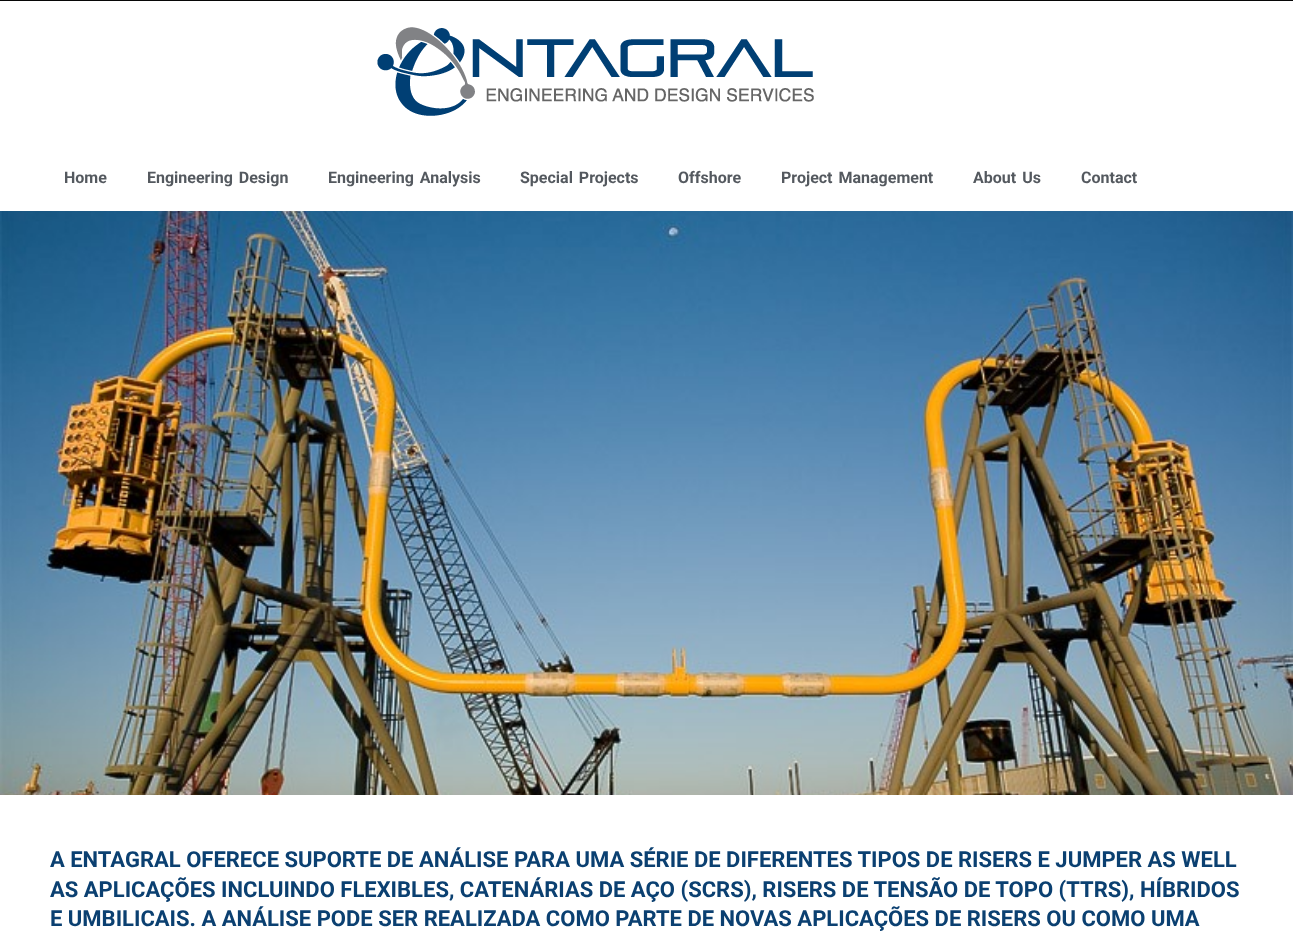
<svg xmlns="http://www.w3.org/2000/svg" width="1293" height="932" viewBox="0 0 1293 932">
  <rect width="100%" height="100%" fill="rgb(255,255,255)"/>
  <rect x="0" y="0" width="1293" height="1" fill="rgb(7,7,7)"/>
  <image x="377" y="27" width="437" height="89" href="pic1.png"/>
  <g font-family="Roboto" font-size="16" font-weight="bold" fill="rgb(84,89,95)">
    <text x="64" y="183">Home</text>
    <text x="147" y="183" word-spacing="2">Engineering Design</text>
    <text x="328" y="183" word-spacing="2">Engineering Analysis</text>
    <text x="520" y="183" word-spacing="2">Special Projects</text>
    <text x="678" y="183">Offshore</text>
    <text x="781" y="183" word-spacing="2">Project Management</text>
    <text x="973" y="183" word-spacing="2">About Us</text>
    <text x="1081" y="183">Contact</text>
  </g>
  <image x="0" y="211" width="1293" height="584" href="pic2.png"/>
  <g font-family="Roboto" font-size="22" font-weight="bold" fill="rgb(11,64,113)">
    <text>
      <tspan x="50" y="867">A ENTAGRAL OFERECE SUPORTE DE ANÁLISE PARA UMA SÉRIE DE DIFERENTES TIPOS DE RISERS E JUMPER AS WELL</tspan>
      <tspan x="50" y="897">AS APLICAÇÕES INCLUINDO FLEXIBLES, CATENÁRIAS DE AÇO (SCRS), RISERS DE TENSÃO DE TOPO (TTRS), HÍBRIDOS</tspan>
      <tspan x="50" y="926">E UMBILICAIS. A ANÁLISE PODE SER REALIZADA COMO PARTE DE NOVAS APLICAÇÕES DE RISERS OU COMO UMA</tspan>
    </text>
  </g>
</svg>
